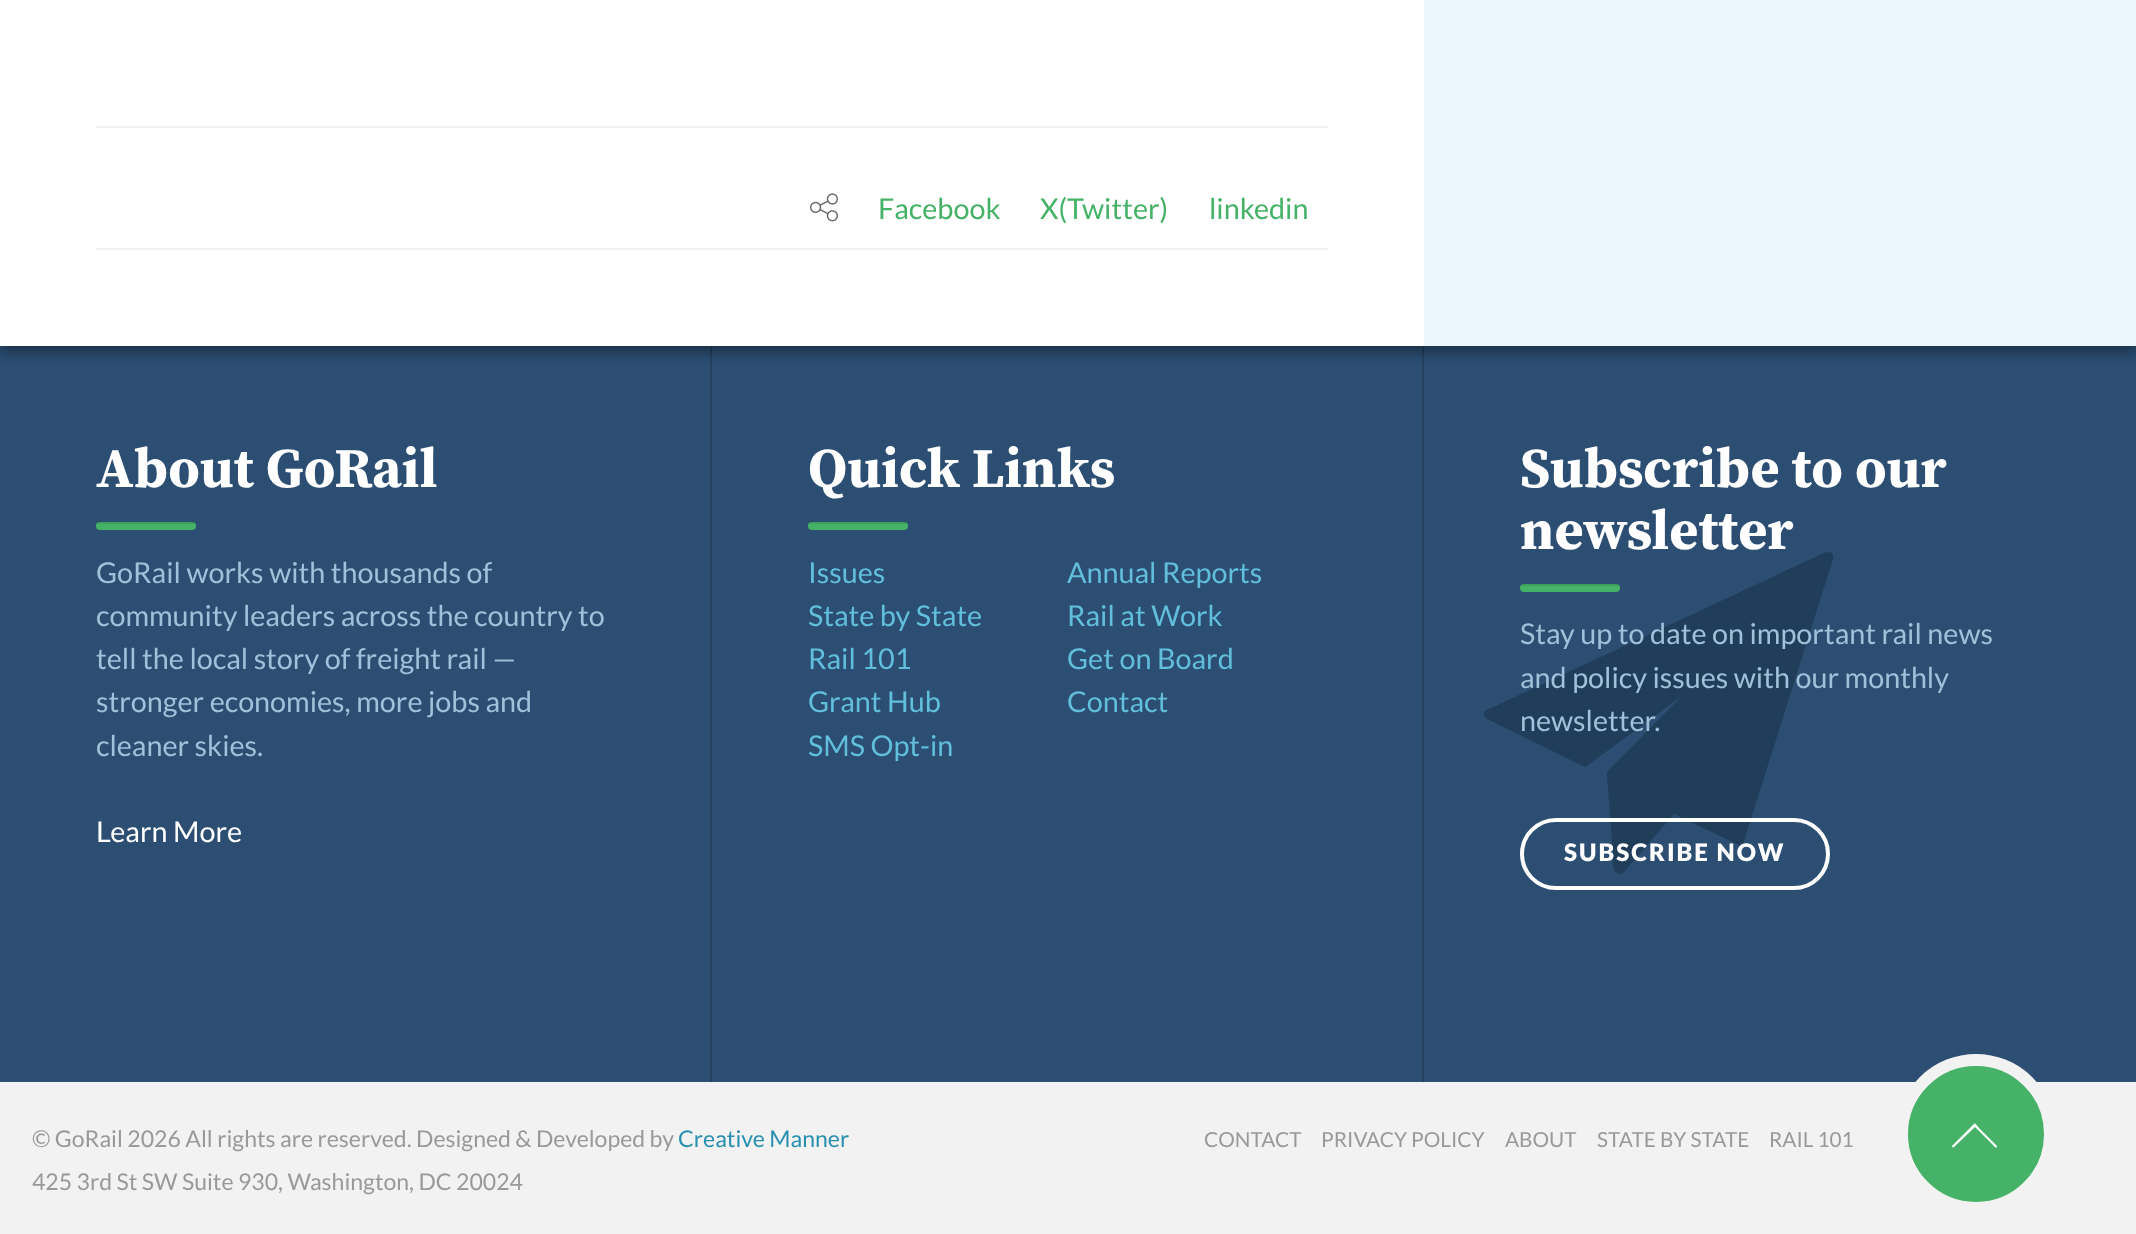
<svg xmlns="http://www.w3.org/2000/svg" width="2136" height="1234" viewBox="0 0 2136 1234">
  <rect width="100%" height="100%" fill="rgb(242,242,242)"/>
  <rect x="0" y="346" width="2136" height="736" fill="rgb(43,78,114)"/>
  <rect x="710" y="346" width="2" height="736" fill="rgb(36,65,95)"/>
  <rect x="1422" y="346" width="2" height="736" fill="rgb(36,65,95)"/>
  <rect x="0" y="-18" width="2136" height="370" fill="rgba(0,0,0,0.23)" filter="blur(6px)"/>
  <rect x="0" y="-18" width="2136" height="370" fill="rgba(0,0,0,0.16)" filter="blur(6px)"/>
  <rect x="0" y="0" width="1424" height="346" fill="rgb(255,255,255)"/>
  <rect x="96" y="126" width="1232" height="2" fill="rgb(242,242,242)"/>
  <rect x="96" y="248" width="1232" height="2" fill="rgb(242,242,242)"/>
  <image x="810" y="193" width="28" height="29" href="pic1.png"/>
  <g font-family="Lato" font-size="28.75" fill="rgb(69,178,103)">
    <text x="878" y="219">Facebook</text>
    <text x="1040" y="219">X(Twitter)</text>
    <text x="1209" y="219">linkedin</text>
  </g>
  <rect x="1424" y="0" width="712" height="346" fill="rgb(235,247,253)"/>
  <text x="96" y="487" font-family="Source Serif Pro" font-size="56" font-weight="bold" fill="rgb(255,255,255)">About GoRail</text>
  <rect x="96" y="522" width="100" height="8" rx="4" fill="rgb(69,178,103)"/>
  <rect x="98" y="522" width="96" height="2" fill="rgba(0,0,0,0.1)"/>
  <g font-family="Lato" font-size="28.75" fill="rgb(161,193,218)">
    <text>
      <tspan x="96" y="583">GoRail works with thousands of</tspan>
      <tspan x="96" y="626">community leaders across the country to</tspan>
      <tspan x="96" y="669">tell the local story of freight rail —</tspan>
      <tspan x="96" y="712">stronger economies, more jobs and</tspan>
      <tspan x="96" y="756">cleaner skies.</tspan>
    </text>
  </g>
  <text x="96" y="842" font-family="Lato" font-size="28.75" fill="rgb(255,255,255)">Learn More</text>
  <text x="808" y="487" font-family="Source Serif Pro" font-size="56" font-weight="bold" fill="rgb(255,255,255)">Quick Links</text>
  <rect x="808" y="522" width="100" height="8" rx="4" fill="rgb(69,178,103)"/>
  <rect x="810" y="522" width="96" height="2" fill="rgba(0,0,0,0.1)"/>
  <g font-family="Lato" font-size="28.75" fill="rgb(97,191,220)">
    <text>
      <tspan x="808" y="583">Issues</tspan>
      <tspan x="808" y="626">State by State</tspan>
      <tspan x="808" y="669">Rail 101</tspan>
      <tspan x="808" y="712">Grant Hub</tspan>
      <tspan x="808" y="756">SMS Opt-in</tspan>
    </text>
    <text>
      <tspan x="1067" y="583">Annual Reports</tspan>
      <tspan x="1067" y="626">Rail at Work</tspan>
      <tspan x="1067" y="669">Get on Board</tspan>
      <tspan x="1067" y="712">Contact</tspan>
    </text>
  </g>
  <path d="M1832 553C1830 552 1828 552 1826 552L1487 710C1485 710 1484 712 1484 714C1484 716 1485 718 1487 719L1583 766C1585 767 1587 767 1588 765L1682 696L1607 772V775L1613 854C1613 856 1611 875 1620 874L1623 873L1674 814L1737 844C1739 845 1740 845 1742 844C1743 843 1744 842 1744 841L1833 559C1834 557 1833 555 1832 553Z" fill="rgb(32,61,90)" fill-rule="evenodd"/>
  <g font-family="Source Serif Pro" font-size="56" font-weight="bold" fill="rgb(255,255,255)">
    <text>
      <tspan x="1520" y="487">Subscribe to our</tspan>
      <tspan x="1520" y="549">newsletter</tspan>
    </text>
  </g>
  <rect x="1520" y="584" width="100" height="8" rx="4" fill="rgb(69,178,103)"/>
  <rect x="1522" y="584" width="96" height="2" fill="rgba(0,0,0,0.1)"/>
  <g font-family="Lato" font-size="28.75" fill="rgb(161,193,218)">
    <text>
      <tspan x="1520" y="644">Stay up to date on important rail news</tspan>
      <tspan x="1520" y="688">and policy issues with our monthly</tspan>
      <tspan x="1520" y="731">newsletter.</tspan>
    </text>
  </g>
  <rect x="1522" y="820" width="306" height="68" rx="34" fill="none" stroke="rgb(255,255,255)" stroke-width="4"/>
  <text x="1564" y="861" font-family="Lato" font-size="24" font-weight="900" letter-spacing="2" fill="rgb(255,255,255)">SUBSCRIBE NOW</text>
  <text x="32" y="1147" font-family="Lato" font-size="23.05" fill="rgb(153,153,153)">© GoRail 2026 All rights are reserved. Designed &amp; Developed by</text>
  <text x="678" y="1147" font-family="Lato" font-size="23.05" fill="rgb(39,144,176)">Creative Manner</text>
  <text x="32" y="1190" font-family="Lato" font-size="23.05" fill="rgb(153,153,153)">425 3rd St SW Suite 930, Washington, DC 20024</text>
  <g font-family="Lato" font-size="20.75" fill="rgb(153,153,153)">
    <text x="1204" y="1147">CONTACT</text>
    <text x="1321" y="1147">PRIVACY POLICY</text>
    <text x="1505" y="1147">ABOUT</text>
    <text x="1597" y="1147">STATE BY STATE</text>
    <text x="1769" y="1147">RAIL 101</text>
  </g>
  <circle cx="1976" cy="1134" r="74" fill="rgb(69,178,103)" stroke="rgb(242,242,242)" stroke-width="12"/>
  <path d="M1952 1146C1952 1147 1953 1148 1954 1147L1975 1127L1992 1144C1994 1146 1996 1149 1997 1147V1146L1979 1128C1974 1122 1976 1122 1970 1128Z" fill="rgb(255,255,255)"/>
</svg>
